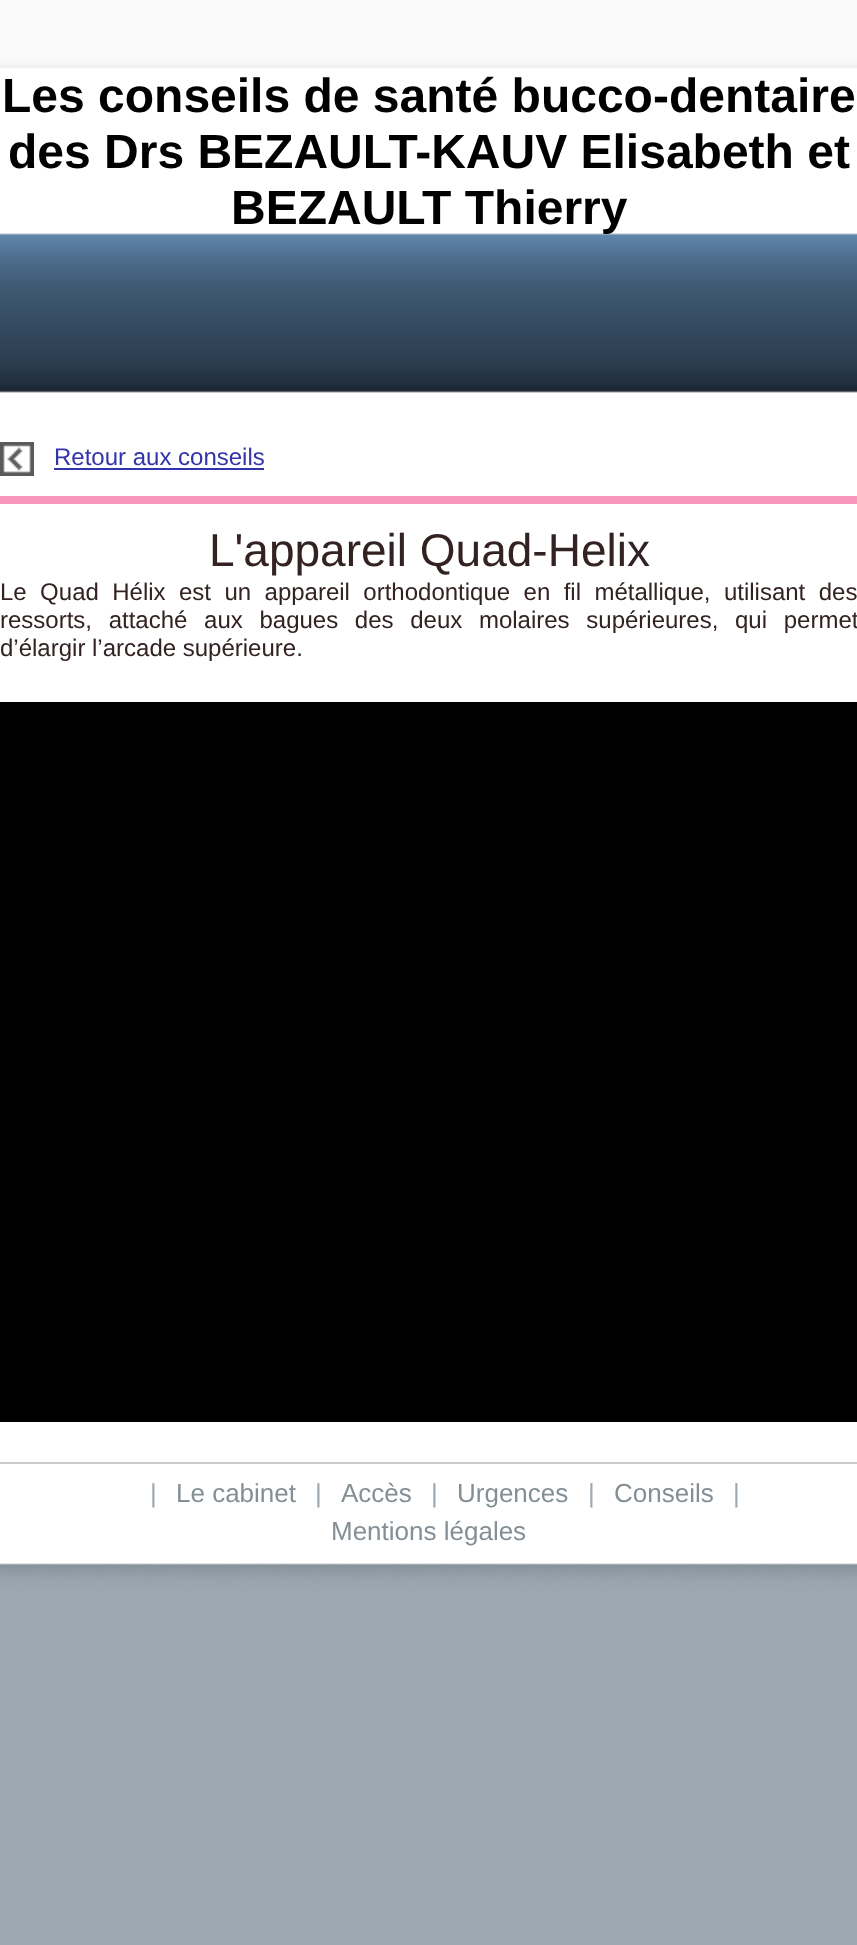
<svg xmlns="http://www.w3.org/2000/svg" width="857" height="1945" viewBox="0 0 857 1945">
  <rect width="100%" height="100%" fill="rgb(155,168,178)"/>
  <rect x="0" y="393" width="857" height="1170" fill="rgb(255,255,255)"/>
  <image x="0" y="1563" width="857" height="37" href="pic1.png"/>
  <image x="0" y="0" width="857" height="393" href="pic2.png"/>
  <g font-family="Liberation Sans" font-size="48" font-weight="bold" fill="rgb(0,0,0)">
    <text x="2" y="112">Les conseils de santé bucco-dentaire</text>
    <text x="8" y="168">des Drs BEZAULT-KAUV Elisabeth et</text>
    <text x="231" y="224">BEZAULT Thierry</text>
  </g>
  <rect x="0" y="496" width="857" height="8" fill="rgb(248,151,187)"/>
  <image x="0" y="442" width="34" height="34" href="pic3.png"/>
  <text x="54" y="465" font-family="Liberation Sans" font-size="24" fill="rgb(51,51,170)">Retour aux conseils</text>
  <rect x="54" y="468" width="210" height="2" fill="rgb(51,51,170)"/>
  <text x="209" y="566" font-family="Liberation Sans" font-size="46" fill="rgb(51,34,34)">L'appareil Quad-Helix</text>
  <g font-family="Liberation Sans" font-size="24" fill="rgb(51,34,34)">
    <text>
      <tspan x="0" y="600" word-spacing="6.75">Le Quad Hélix est un appareil orthodontique en fil métallique, utilisant des</tspan>
      <tspan x="0" y="628" word-spacing="10">ressorts, attaché aux bagues des deux molaires supérieures, qui permet</tspan>
      <tspan x="0" y="656">d’élargir l’arcade supérieure.</tspan>
    </text>
  </g>
  <rect x="0" y="702" width="857" height="720" fill="rgb(0,0,0)"/>
  <rect x="0" y="1462" width="857" height="2" fill="rgb(204,204,204)"/>
  <text x="150" y="1502" font-family="Liberation Sans" font-size="26" fill="rgb(155,168,178)">|</text>
  <text x="176" y="1502" font-family="Liberation Sans" font-size="26" fill="rgb(132,143,149)">Le cabinet</text>
  <text x="315" y="1502" font-family="Liberation Sans" font-size="26" fill="rgb(155,168,178)">|</text>
  <text x="341" y="1502" font-family="Liberation Sans" font-size="26" fill="rgb(132,143,149)">Accès</text>
  <text x="431" y="1502" font-family="Liberation Sans" font-size="26" fill="rgb(155,168,178)">|</text>
  <text x="457" y="1502" font-family="Liberation Sans" font-size="26" fill="rgb(132,143,149)">Urgences</text>
  <text x="588" y="1502" font-family="Liberation Sans" font-size="26" fill="rgb(155,168,178)">|</text>
  <text x="614" y="1502" font-family="Liberation Sans" font-size="26" fill="rgb(132,143,149)">Conseils</text>
  <text x="733" y="1502" font-family="Liberation Sans" font-size="26" fill="rgb(155,168,178)">|</text>
  <text x="331" y="1540" font-family="Liberation Sans" font-size="26" fill="rgb(132,143,149)">Mentions légales</text>
</svg>
